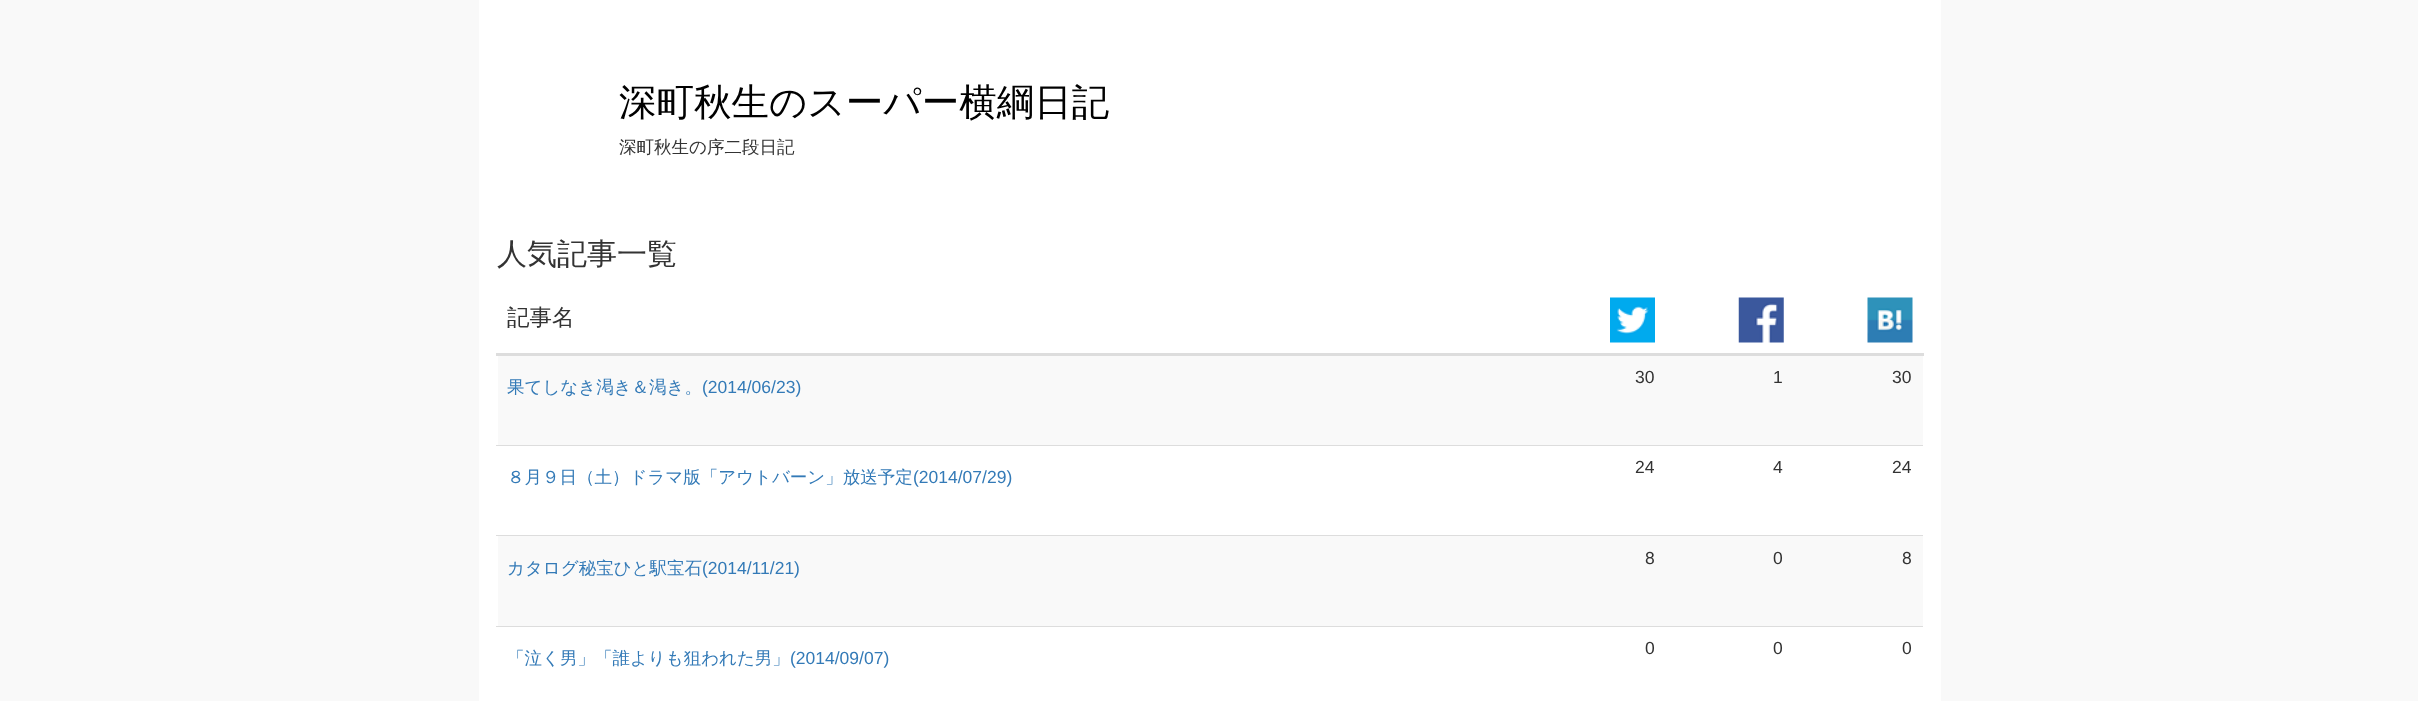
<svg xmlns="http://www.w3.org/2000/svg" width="2418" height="701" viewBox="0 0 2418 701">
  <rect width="100%" height="100%" fill="rgb(249,249,249)"/>
  <rect x="479" y="0" width="1462" height="701" fill="rgb(255,255,255)"/>
  <text x="619" y="115" font-family="WenQuanYi Zen Hei" font-size="37.5" font-weight="500" fill="rgb(0,0,0)">深町秋生のスーパー横綱日記</text>
  <text x="619" y="153" font-family="WenQuanYi Zen Hei" font-size="17.5" font-weight="500" fill="rgb(51,51,51)">深町秋生の序二段日記</text>
  <text x="497" y="264" font-family="WenQuanYi Zen Hei" font-size="30" font-weight="500" fill="rgb(51,51,51)">人気記事一覧</text>
  <rect x="496" y="353" width="1428" height="3" fill="rgb(221,221,221)"/>
  <image x="1867" y="297" width="46" height="46" href="pic1.png"/>
  <text x="507" y="325" font-family="WenQuanYi Zen Hei" font-size="22.5" font-weight="500" fill="rgb(51,51,51)">記事名</text>
  <image x="1610" y="297" width="45" height="46" href="pic2.png"/>
  <image x="1738" y="297" width="46" height="46" href="pic3.png"/>
  <rect x="498" y="356" width="1425" height="89" fill="rgb(249,249,249)"/>
  <text x="507" y="393" font-family="WenQuanYi Zen Hei" font-size="17.5" font-weight="500" fill="rgb(51,122,183)">果てしなき渇き＆渇き。</text>
  <text x="702" y="393" font-family="Liberation Sans" font-size="17.5" fill="rgb(51,122,183)">(2014/06/23)</text>
  <g font-family="Liberation Sans" font-size="17.5" fill="rgb(51,51,51)">
    <text x="1635" y="383">30</text>
    <text x="1773" y="383">1</text>
    <text x="1892" y="383">30</text>
    <text x="1635" y="473">24</text>
    <text x="1773" y="473">4</text>
  </g>
  <rect x="496" y="445" width="1427" height="1" fill="rgb(221,221,221)"/>
  <text x="1892" y="473" font-family="Liberation Sans" font-size="17.5" fill="rgb(51,51,51)">24</text>
  <text x="507" y="483" font-family="WenQuanYi Zen Hei" font-size="17.5" font-weight="500" fill="rgb(51,122,183)">８月９日（土）ドラマ版「アウトバーン」放送予定</text>
  <text x="913" y="483" font-family="Liberation Sans" font-size="17.5" fill="rgb(51,122,183)">(2014/07/29)</text>
  <rect x="498" y="536" width="1425" height="90" fill="rgb(249,249,249)"/>
  <text x="507" y="574" font-family="WenQuanYi Zen Hei" font-size="17.5" font-weight="500" fill="rgb(51,122,183)">カタログ秘宝ひと駅宝石</text>
  <text x="702" y="574" font-family="Liberation Sans" font-size="17.5" fill="rgb(51,122,183)">(2014/11/21)</text>
  <g font-family="Liberation Sans" font-size="17.5" fill="rgb(51,51,51)">
    <text x="1645" y="564">8</text>
    <text x="1773" y="564">0</text>
  </g>
  <rect x="496" y="535" width="1427" height="1" fill="rgb(221,221,221)"/>
  <text x="1902" y="564" font-family="Liberation Sans" font-size="17.5" fill="rgb(51,51,51)">8</text>
  <text x="507" y="664" font-family="WenQuanYi Zen Hei" font-size="17.5" font-weight="500" fill="rgb(51,122,183)">「泣く男」「誰よりも狙われた男」</text>
  <text x="790" y="664" font-family="Liberation Sans" font-size="17.5" fill="rgb(51,122,183)">(2014/09/07)</text>
  <g font-family="Liberation Sans" font-size="17.5" fill="rgb(51,51,51)">
    <text x="1645" y="654">0</text>
    <text x="1773" y="654">0</text>
  </g>
  <rect x="496" y="626" width="1427" height="1" fill="rgb(221,221,221)"/>
  <text x="1902" y="654" font-family="Liberation Sans" font-size="17.5" fill="rgb(51,51,51)">0</text>
</svg>
